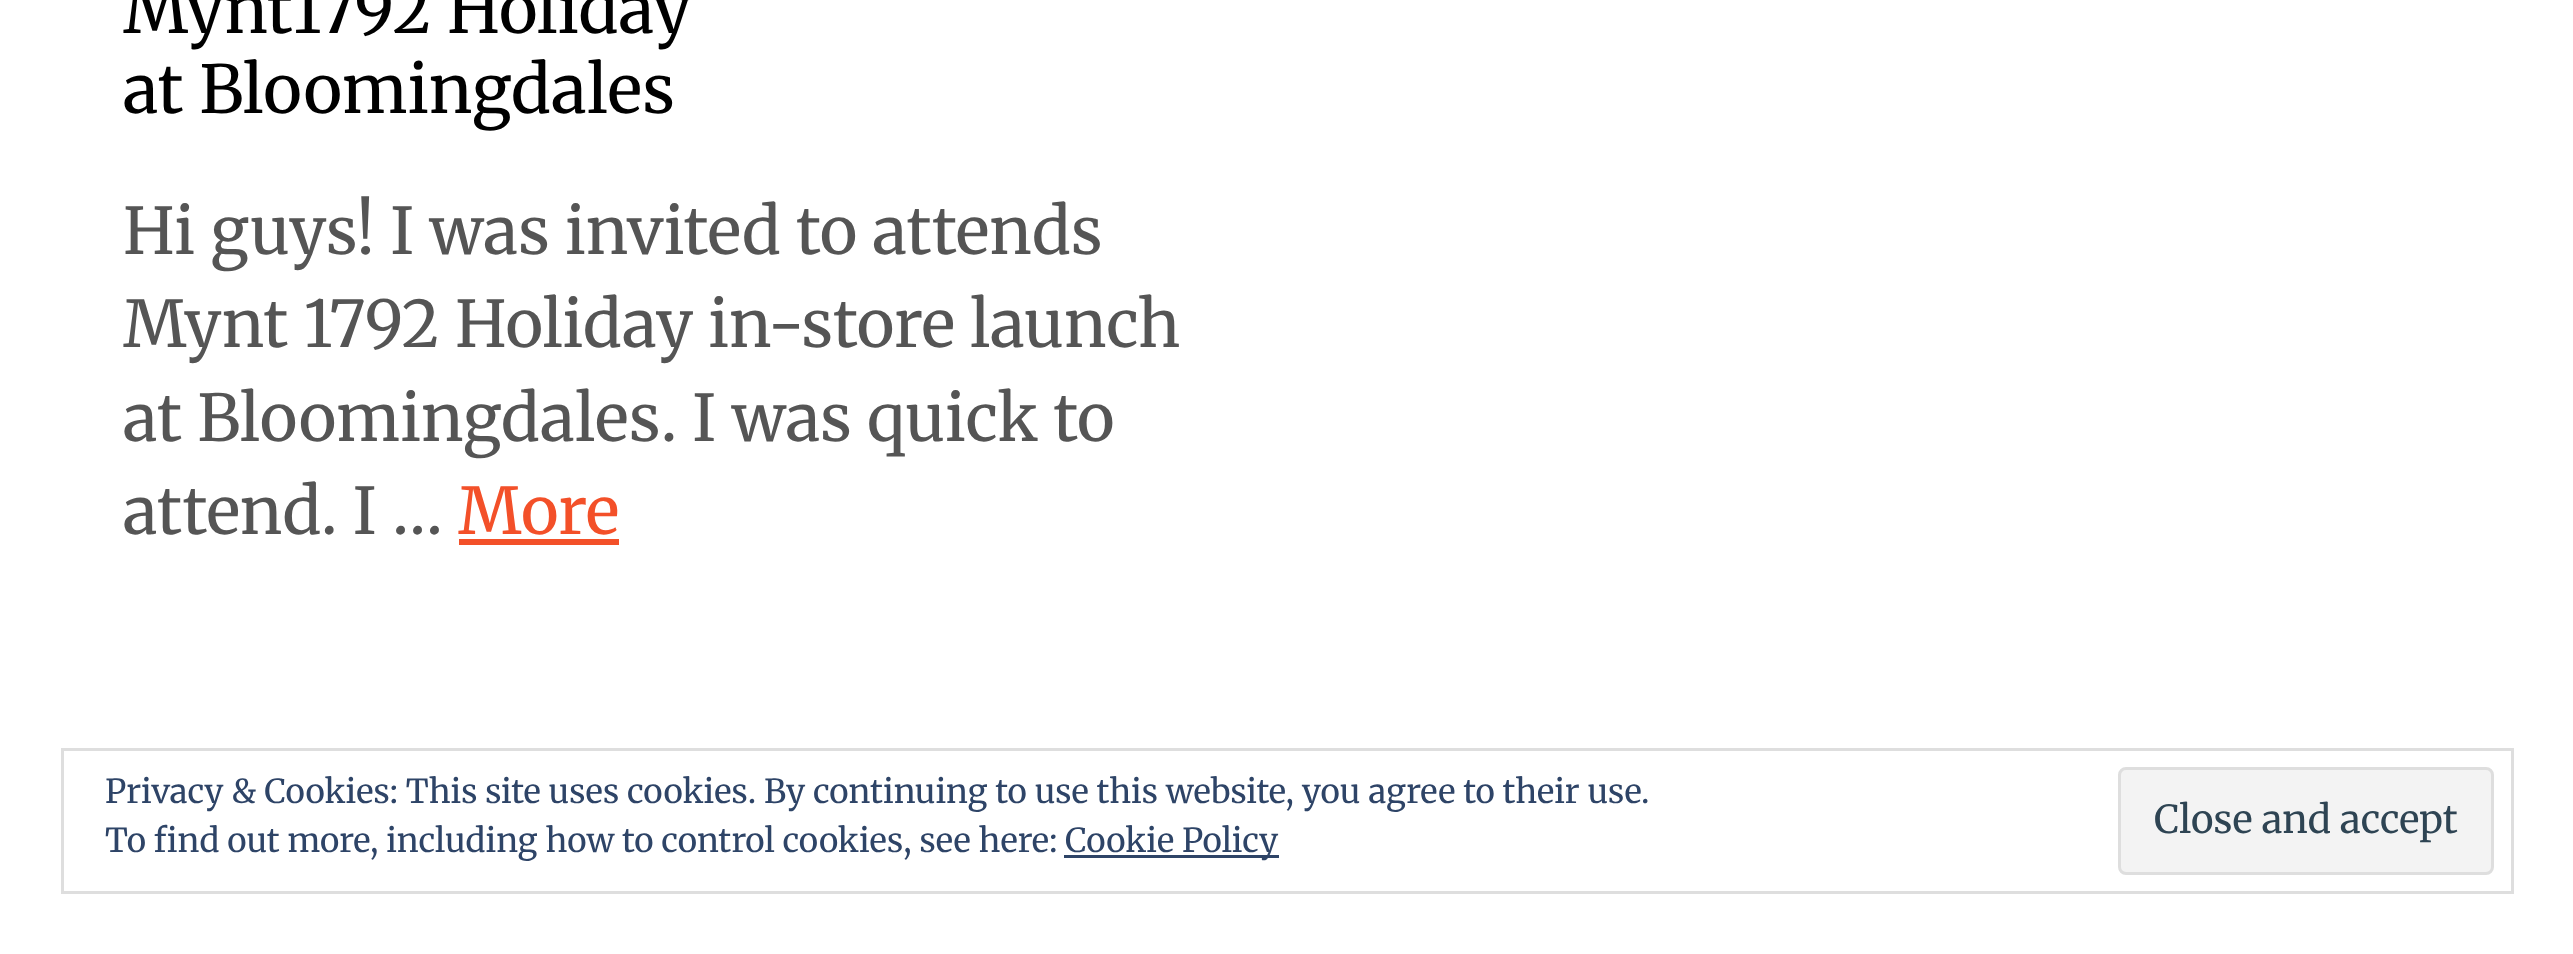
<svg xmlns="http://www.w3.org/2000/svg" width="2573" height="954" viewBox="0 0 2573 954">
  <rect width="100%" height="100%" fill="rgb(255,255,255)"/>
  <g font-family="Merriweather" font-size="66" fill="rgb(0,0,0)">
    <text>
      <tspan x="123" y="33">Mynt1792 Holiday</tspan>
      <tspan x="123" y="113">at Bloomingdales</tspan>
    </text>
  </g>
  <g font-family="Merriweather" font-size="64.3" fill="rgb(85,85,85)">
    <text>
      <tspan x="123" y="254">Hi guys! I was invited to attends</tspan>
      <tspan x="123" y="347">Mynt 1792 Holiday in-store launch</tspan>
      <tspan x="123" y="441">at Bloomingdales. I was quick to</tspan>
      <tspan x="123" y="534">attend. I …</tspan>
    </text>
  </g>
  <text x="458" y="534" font-family="Merriweather" font-size="64.3" fill="rgb(243,80,41)">More</text>
  <rect x="459" y="539" width="160" height="6" fill="rgb(243,80,41)"/>
  <rect x="62.5" y="749.5" width="2450" height="143" fill="none" stroke="rgb(222,222,222)" stroke-width="3"/>
  <g font-family="Merriweather" font-size="33" fill="rgb(46,68,103)">
    <text>
      <tspan x="105" y="803">Privacy &amp; Cookies: This site uses cookies. By continuing to use this website, you agree to their use.</tspan>
      <tspan x="105" y="852">To find out more, including how to control cookies, see here:</tspan>
    </text>
  </g>
  <rect x="1064" y="855" width="215" height="3" fill="rgb(46,68,103)"/>
  <text x="1065" y="852" font-family="Merriweather" font-size="33" fill="rgb(46,68,103)">Cookie Policy</text>
  <rect x="2119.5" y="768.5" width="373" height="105" rx="6.5" fill="rgb(243,243,243)" stroke="rgb(222,222,222)" stroke-width="3"/>
  <text x="2154" y="833" font-family="Merriweather" font-size="38.5" fill="rgb(46,68,83)">Close and accept</text>
</svg>
